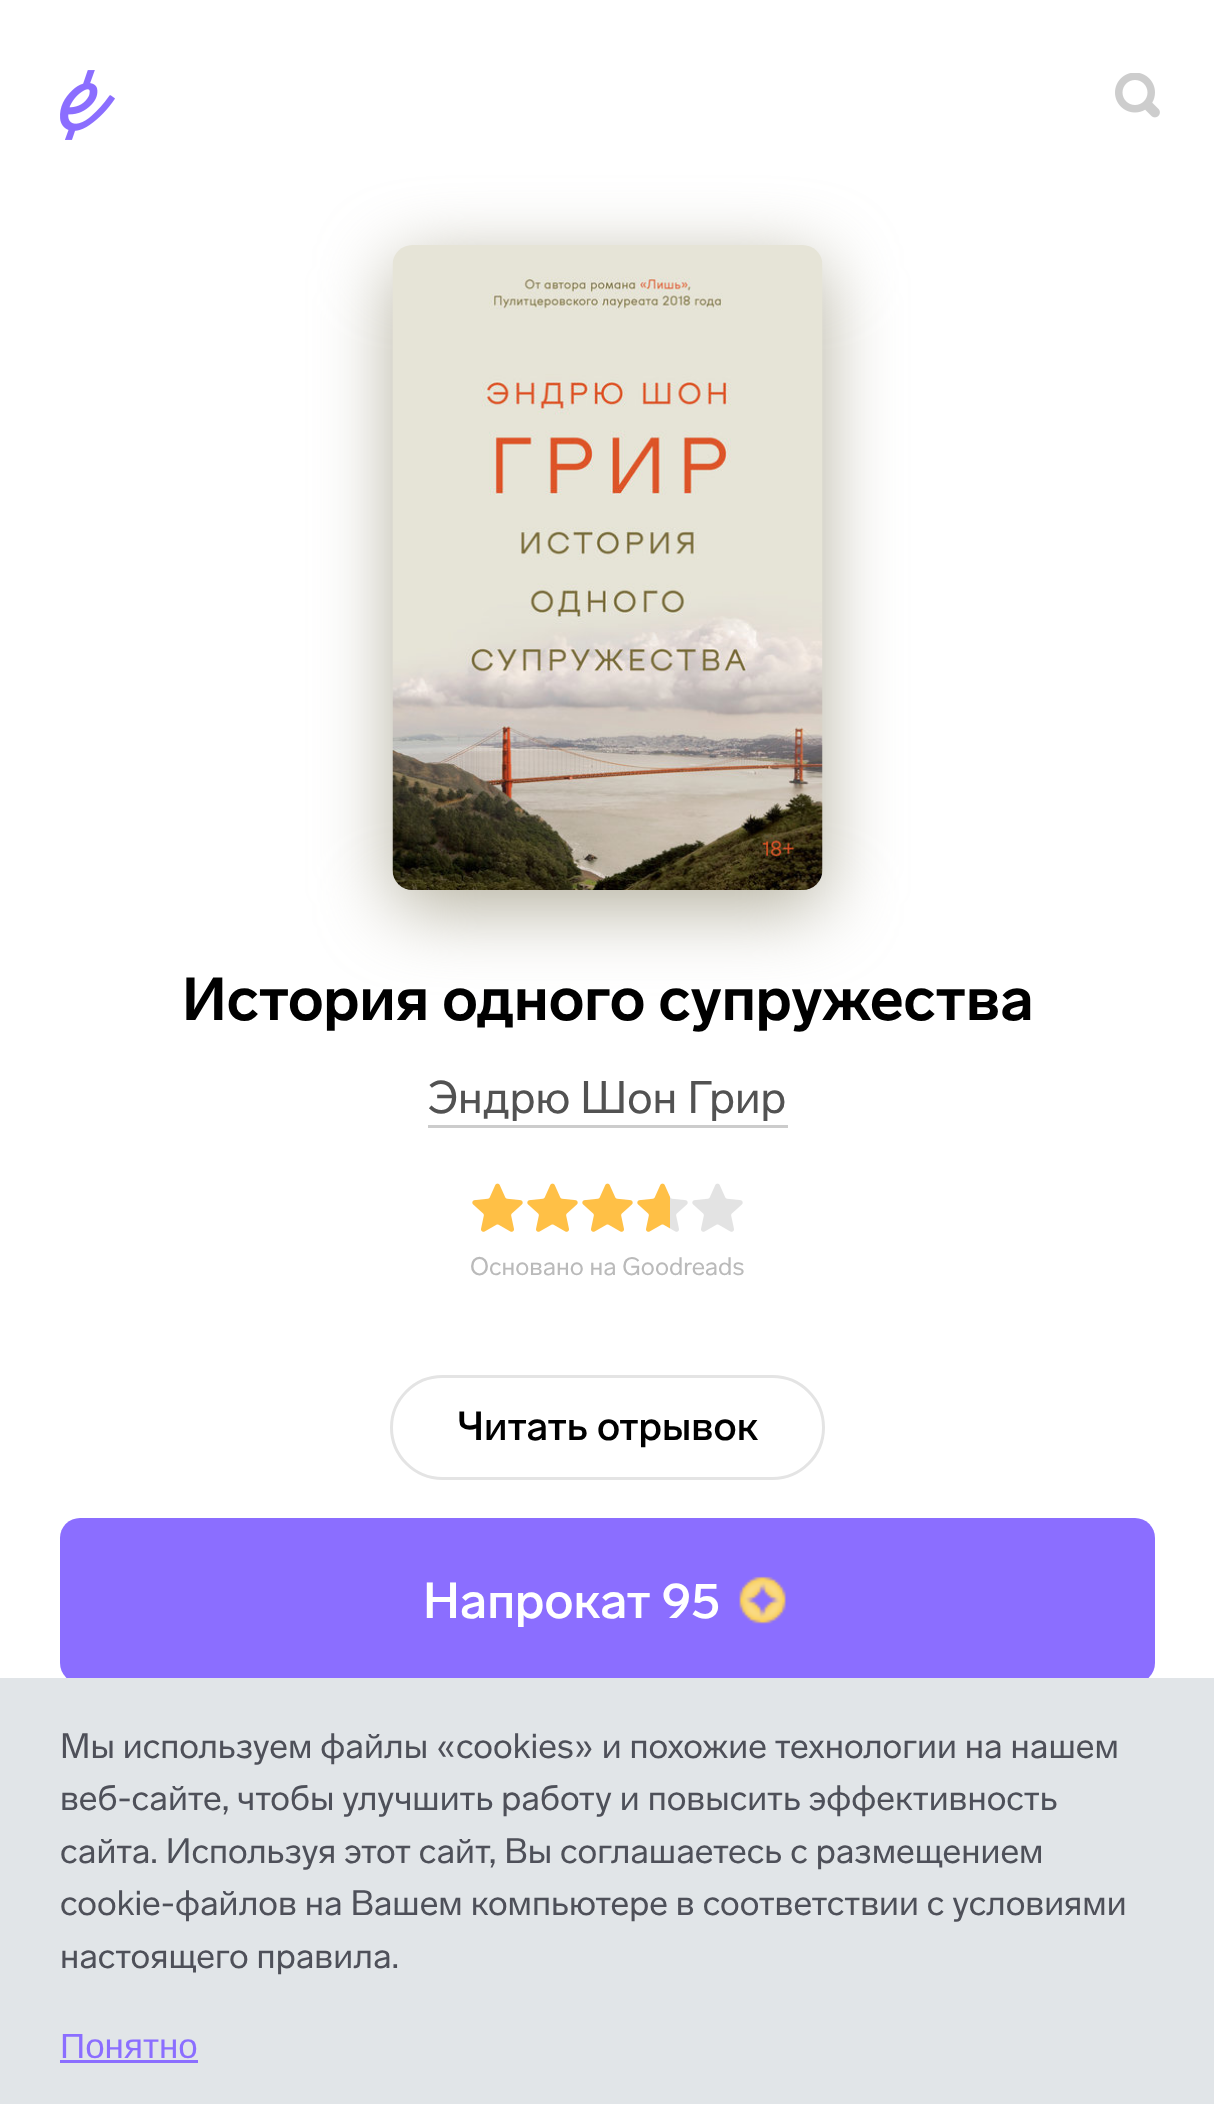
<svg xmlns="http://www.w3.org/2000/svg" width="1214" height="2104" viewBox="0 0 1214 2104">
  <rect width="100%" height="100%" fill="rgb(255,255,255)"/>
  <image x="60" y="70" width="55" height="70" href="pic1.png"/>
  <image x="1115" y="73" width="45" height="45" href="pic2.png"/>
  <rect x="393" y="263" width="430" height="645" rx="20" fill="rgba(161,156,134,0.8)" filter="blur(37.5px)"/>
  <image x="392" y="245" width="431" height="645" href="pic3.png"/>
  <text x="182" y="1020" font-family="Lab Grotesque" font-size="60" font-weight="bold" fill="rgb(0,0,0)">История одного супружества</text>
  <text x="428" y="1113" font-family="Lab Grotesque" font-size="45" fill="rgb(82,82,82)">Эндрю Шон Грир</text>
  <rect x="428" y="1125" width="360" height="3" fill="rgb(204,204,204)"/>
  <image x="472" y="1183" width="51" height="49" href="pic4.png"/>
  <image x="527" y="1183" width="51" height="49" href="pic4.png"/>
  <image x="582" y="1183" width="51" height="49" href="pic4.png"/>
  <image x="637" y="1183" width="51" height="49" href="pic5.png"/>
  <image x="692" y="1183" width="51" height="49" href="pic6.png"/>
  <text x="470" y="1275" font-family="Lab Grotesque" font-size="25" fill="rgb(186,186,186)">Основано на Goodreads</text>
  <rect x="391.5" y="1376.5" width="432" height="102" rx="51" fill="none" stroke="rgb(228,228,228)" stroke-width="3"/>
  <text x="457" y="1440" font-family="Lab Grotesque" font-size="40" font-weight="500" fill="rgb(0,0,0)">Читать отрывок</text>
  <rect x="60" y="1518" width="1095" height="165" rx="20" fill="rgb(139,110,255)"/>
  <text x="423" y="1618" font-family="Lab Grotesque" font-size="50" font-weight="500" fill="rgb(255,255,255)">Напрокат 95</text>
  <image x="739" y="1576" width="47" height="48" href="pic7.png"/>
  <rect x="0" y="1678" width="1214" height="426" fill="rgb(225,229,232)"/>
  <g font-family="Lab Grotesque" font-size="35" fill="rgb(78,80,89)">
    <text>
      <tspan x="60" y="1758">Мы используем файлы «cookies» и похожие технологии на нашем</tspan>
      <tspan x="60" y="1810">веб-сайте, чтобы улучшить работу и повысить эффективность</tspan>
      <tspan x="60" y="1863">сайта. Используя этот сайт, Вы соглашаетесь с размещением</tspan>
      <tspan x="60" y="1915">cookie-файлов на Вашем компьютере в соответствии с условиями</tspan>
      <tspan x="60" y="1968">настоящего правила.</tspan>
    </text>
  </g>
  <text x="60" y="2058" font-family="Liberation Sans" font-size="35" fill="rgb(139,110,255)">Понятно</text>
  <rect x="60" y="2060" width="138" height="3" fill="rgb(139,110,255)"/>
</svg>
